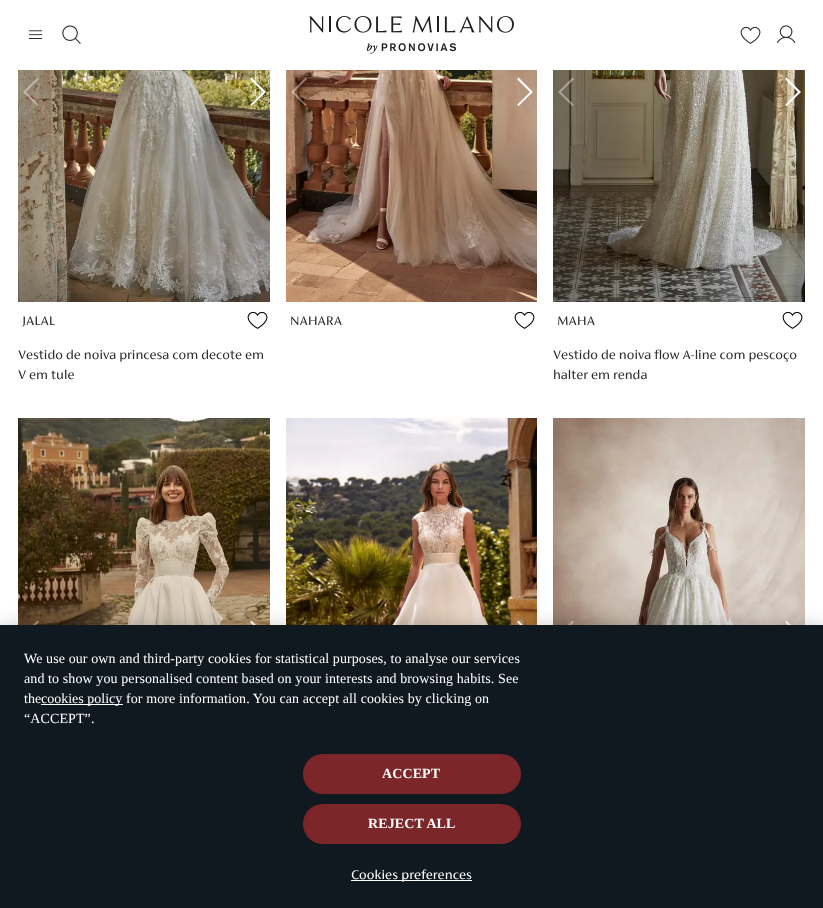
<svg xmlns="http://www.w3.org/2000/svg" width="823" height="908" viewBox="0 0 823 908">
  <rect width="100%" height="100%" fill="rgb(255,255,255)"/>
  <image x="28" y="30" width="15" height="9" href="pic1.png"/>
  <image x="62" y="25" width="19" height="19" href="pic2.png"/>
  <image x="309" y="16" width="205" height="38" href="pic3.png"/>
  <image x="740" y="26" width="21" height="18" href="pic4.png"/>
  <image x="776" y="25" width="20" height="18" href="pic5.png"/>
  <image x="18" y="70" width="252" height="232" href="pic6.png"/>
  <path d="M26 92L39 79L37.5 77.5L23 92L37.5 106L39 105Z" fill="rgba(255,255,255,0.4)"/>
  <path d="M251.5 77.5L250 79L263 92L250 105L251.5 106L266 92Z" fill="rgb(255,255,255)"/>
  <text x="22" y="325" font-family="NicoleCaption" font-size="14" fill="rgb(47,45,45)">JALAL</text>
  <image x="247" y="311" width="21" height="18" href="pic7.png"/>
  <g font-family="NicoleCaption" font-size="14" fill="rgb(47,45,45)">
    <text>
      <tspan x="18" y="359">Vestido de noiva princesa com decote em</tspan>
      <tspan x="18" y="379">V em tule</tspan>
    </text>
  </g>
  <image x="286" y="70" width="251" height="232" href="pic8.png"/>
  <path d="M294 92L307 79L305.5 77.5L291 92L305.5 106L307 105Z" fill="rgba(255,255,255,0.4)"/>
  <path d="M518.5 77.5L517 79L530 92L517 105L518.5 106L533 92Z" fill="rgb(255,255,255)"/>
  <text x="290" y="325" font-family="NicoleCaption" font-size="14" fill="rgb(47,45,45)">NAHARA</text>
  <image x="514" y="311" width="21" height="18" href="pic7.png"/>
  <image x="553" y="70" width="252" height="232" href="pic9.png"/>
  <path d="M561 92L574 79L572.5 77.5L558 92L572.5 106L574 105Z" fill="rgba(255,255,255,0.4)"/>
  <path d="M786.5 77.5L785 79L798 92L785 105L786.5 106L801 92Z" fill="rgb(255,255,255)"/>
  <text x="557" y="325" font-family="NicoleCaption" font-size="14" fill="rgb(47,45,45)">MAHA</text>
  <image x="782" y="311" width="21" height="18" href="pic7.png"/>
  <g font-family="NicoleCaption" font-size="14" fill="rgb(47,45,45)">
    <text>
      <tspan x="553" y="359">Vestido de noiva flow A-line com pescoço</tspan>
      <tspan x="553" y="379">halter em renda</tspan>
    </text>
  </g>
  <image x="18" y="418" width="252" height="207" href="pic10.png"/>
  <path d="M26 635L39 622L37.5 620.5L23 635L37.5 649L39 648Z" fill="rgba(255,255,255,0.4)"/>
  <path d="M251.5 620.5L250 622L263 635L250 648L251.5 649L266 635Z" fill="rgb(255,255,255)"/>
  <image x="286" y="418" width="251" height="207" href="pic11.png"/>
  <path d="M294 635L307 622L305.5 620.5L291 635L305.5 649L307 648Z" fill="rgba(255,255,255,0.4)"/>
  <path d="M518.5 620.5L517 622L530 635L517 648L518.5 649L533 635Z" fill="rgb(255,255,255)"/>
  <image x="553" y="418" width="252" height="207" href="pic12.png"/>
  <path d="M561 635L574 622L572.5 620.5L558 635L572.5 649L574 648Z" fill="rgba(255,255,255,0.4)"/>
  <path d="M786.5 620.5L785 622L798 635L785 648L786.5 649L801 635Z" fill="rgb(255,255,255)"/>
  <rect x="0" y="625" width="823" height="283" fill="rgba(0,0,0,0.2)" filter="blur(9px)"/>
  <rect x="0" y="625" width="823" height="283" fill="rgb(16,24,32)"/>
  <g font-family="Liberation Serif" font-size="14" letter-spacing="0.1" fill="rgb(255,255,255)">
    <text>
      <tspan x="24" y="663">We use our own and third-party cookies for statistical purposes, to analyse our services</tspan>
      <tspan x="24" y="683">and to show you personalised content based on your interests and browsing habits. See</tspan>
      <tspan x="24" y="703">the</tspan>
    </text>
  </g>
  <rect x="41" y="704" width="82" height="1" fill="rgb(255,255,255)"/>
  <text x="41" y="703" font-family="Liberation Serif" font-size="14" fill="rgb(255,255,255)">cookies policy</text>
  <g font-family="Liberation Serif" font-size="14" letter-spacing="0.1" fill="rgb(255,255,255)">
    <text x="126" y="703">for more information. You can accept all cookies by clicking on</text>
    <text x="24" y="723">“ACCEPT”.</text>
  </g>
  <rect x="303" y="754" width="218" height="40" rx="20" fill="rgb(124,38,41)"/>
  <text x="382" y="778" font-family="Liberation Serif" font-size="14" font-weight="bold" letter-spacing="0.1" fill="rgb(255,255,255)">ACCEPT</text>
  <rect x="303" y="804" width="218" height="40" rx="20" fill="rgb(124,38,41)"/>
  <text x="368" y="828" font-family="Liberation Serif" font-size="14" font-weight="bold" letter-spacing="0.1" fill="rgb(255,255,255)">REJECT ALL</text>
  <rect x="351" y="880" width="121" height="1" fill="rgb(255,255,255)"/>
  <text x="351" y="879" font-family="NicoleCaption" font-size="14" letter-spacing="0.1" fill="rgb(255,255,255)">Cookies preferences</text>
</svg>
